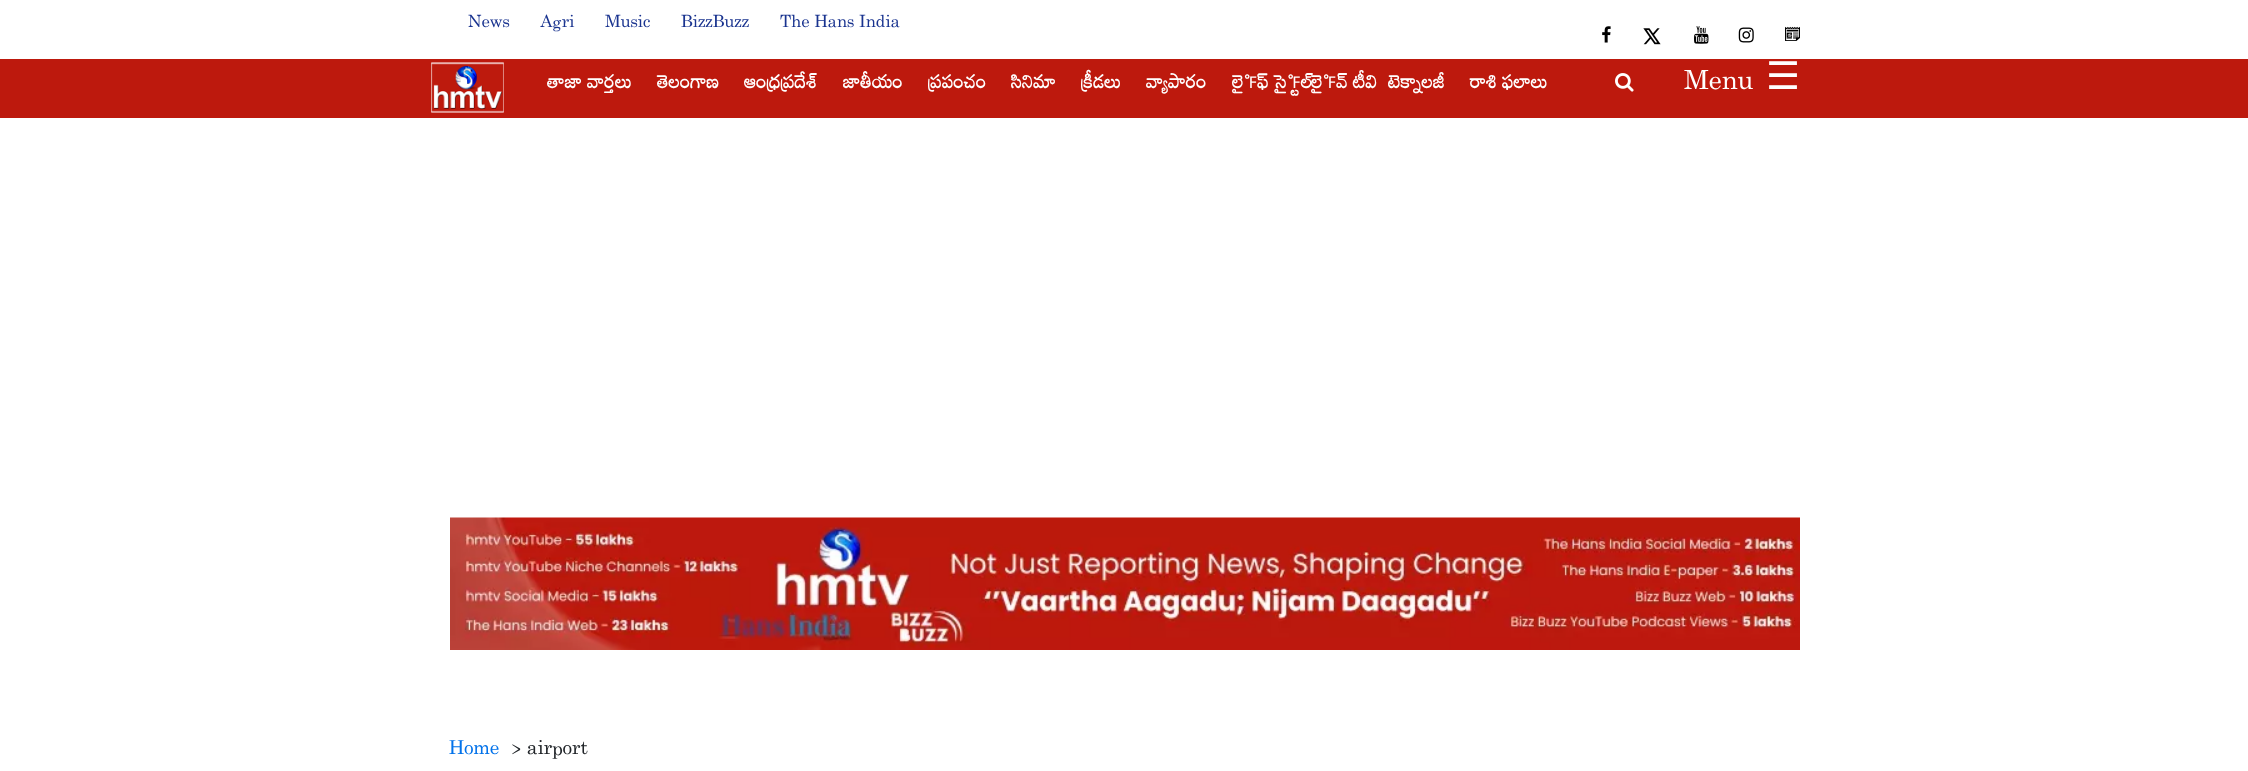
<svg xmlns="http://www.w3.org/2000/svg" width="2248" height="771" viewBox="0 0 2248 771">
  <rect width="100%" height="100%" fill="rgb(255,255,255)"/>
  <g font-family="Mandali" font-size="17.5" fill="rgb(25,51,143)">
    <text x="468" y="27">News</text>
    <text x="540" y="27">Agri</text>
    <text x="605" y="27">Music</text>
    <text x="681" y="27">BizzBuzz</text>
    <text x="780" y="27">The Hans India</text>
  </g>
  <image x="1602" y="26" width="9" height="17" href="pic1.png"/>
  <image x="1643" y="28" width="18" height="17" href="pic2.png"/>
  <image x="1694" y="26" width="15" height="18" href="pic3.png"/>
  <image x="1738" y="27" width="16" height="16" href="pic4.png"/>
  <image x="1785" y="26" width="15" height="15" href="pic5.png"/>
  <rect x="0" y="59" width="2248" height="59" fill="rgb(189,25,13)"/>
  <image x="431" y="62" width="73" height="51" href="pic6.png"/>
  <g font-family="Mandali" font-size="18.75" font-weight="bold" fill="rgb(255,255,255)">
    <text x="547" y="88">తాజా వార్తలు</text>
    <text x="657" y="88">తెలంగాణ</text>
    <text x="744" y="88">ఆంధ్రప్రదేశ్</text>
    <text x="843" y="88">జాతీయం</text>
    <text x="928" y="88">ప్రపంచం</text>
    <text x="1011" y="88">సినిమా</text>
    <text x="1081" y="88">క్రీడలు</text>
    <text x="1146" y="88">వ్యాపారం</text>
    <text x="1232" y="88">లైఫ్ స్టైల్</text>
    <text x="1311" y="88">లైవ్ టీవి</text>
    <text x="1388" y="88">టెక్నాలజీ</text>
    <text x="1470" y="88">రాశి ఫలాలు</text>
  </g>
  <image x="1615" y="73" width="19" height="19" href="pic7.png"/>
  <text x="1684" y="89" font-family="Mandali" font-size="27.5" fill="rgb(255,255,255)">Menu</text>
  <text x="1766" y="89" font-family="DejaVu Sans" font-size="38" fill="rgb(255,255,255)">☰</text>
  <image x="450" y="517" width="1350" height="133" href="pic8.png"/>
  <text x="449" y="754" font-family="Mandali" font-size="20" fill="rgb(2,114,234)">Home</text>
  <text x="511" y="754" font-family="Mandali" font-size="20" fill="rgb(33,37,41)">&gt; airport</text>
</svg>
